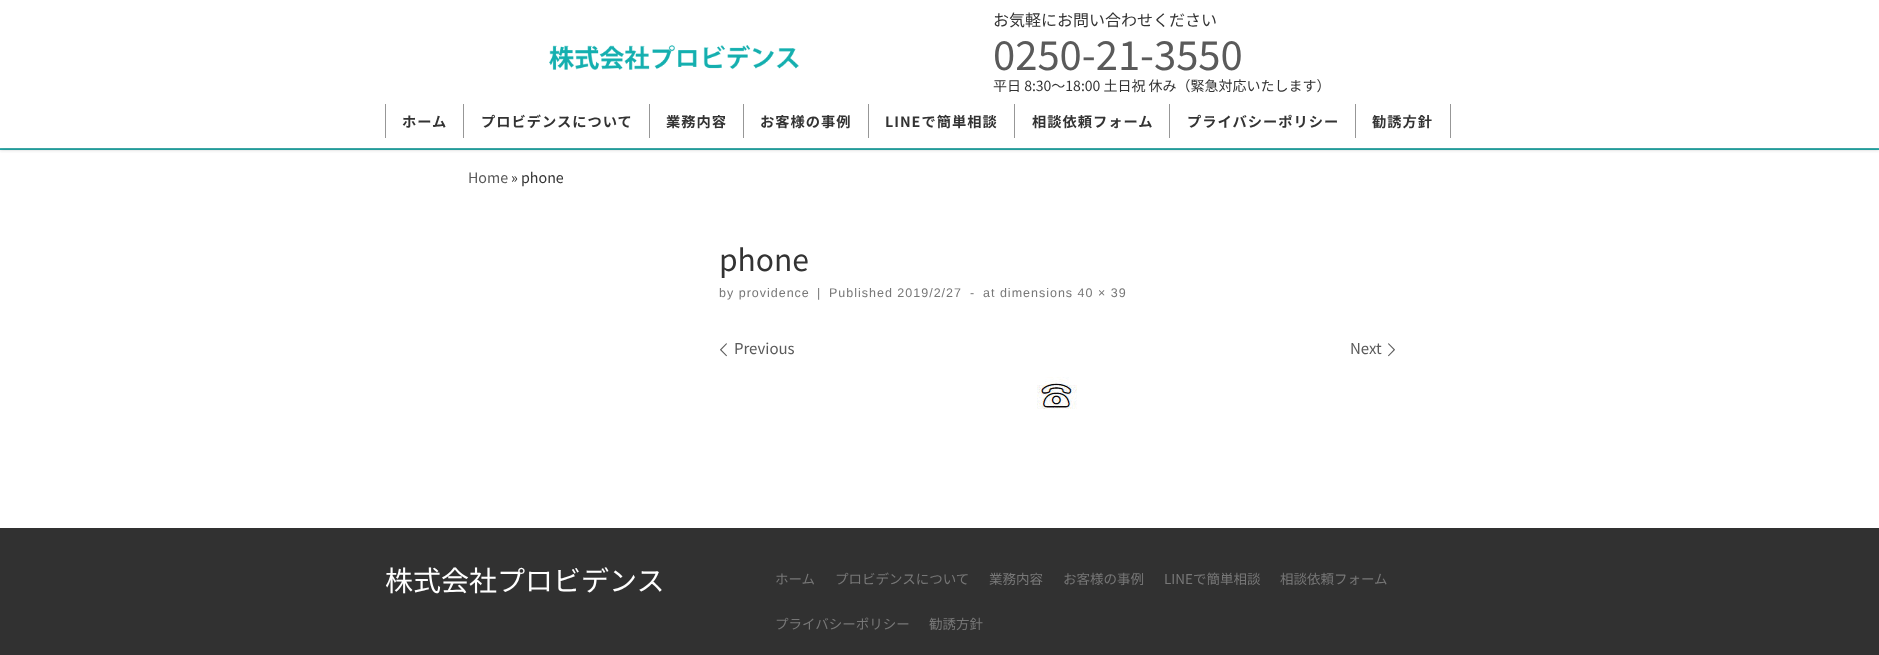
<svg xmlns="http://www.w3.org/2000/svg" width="1879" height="655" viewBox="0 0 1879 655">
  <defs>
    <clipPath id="clip1"><rect x="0" y="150" width="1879" height="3"/></clipPath>
    <clipPath id="clip2"><rect x="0" y="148" width="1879" height="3"/></clipPath>
  </defs>
  <rect width="100%" height="100%" fill="rgb(255,255,255)"/>
  <g clip-path="url(#clip1)">
    <rect x="0" y="2" width="1879" height="150" fill="rgba(102,102,102,0.08)" filter="blur(1px)"/>
  </g>
  <rect x="0" y="149" width="1879" height="1" fill="rgb(34,167,166)"/>
  <rect x="0" y="148" width="1879" height="1" fill="rgb(67,180,179)"/>
  <g clip-path="url(#clip2)">
    <rect x="0" y="0" width="1879" height="148" fill="rgba(0,0,0,0.2)" filter="blur(2.5px)"/>
  </g>
  <image x="549" y="45" width="250" height="25" href="pic1.png"/>
  <text x="993" y="26" font-family="Noto Sans JP" font-size="16" fill="rgb(51,51,51)">お気軽にお問い合わせください</text>
  <text x="993" y="70" font-family="Noto Sans JP" font-size="40" fill="rgb(90,90,90)">0250-21-3550</text>
  <text x="993" y="91" font-family="Noto Sans JP" font-size="14" fill="rgb(51,51,51)">平日 8:30～18:00 土日祝 休み（緊急対応いたします）</text>
  <rect x="463" y="104" width="1" height="34" fill="rgb(151,151,151)"/>
  <rect x="385" y="104" width="1" height="34" fill="rgb(151,151,151)"/>
  <text x="402" y="127" font-family="Noto Sans JP" font-size="14.25" font-weight="bold" letter-spacing="1" fill="rgb(51,51,51)">ホーム</text>
  <rect x="649" y="104" width="1" height="34" fill="rgb(151,151,151)"/>
  <text x="481" y="127" font-family="Noto Sans JP" font-size="14.25" font-weight="bold" letter-spacing="1" fill="rgb(51,51,51)">プロビデンスについて</text>
  <rect x="743" y="104" width="1" height="34" fill="rgb(151,151,151)"/>
  <text x="666" y="127" font-family="Noto Sans JP" font-size="14.25" font-weight="bold" letter-spacing="1" fill="rgb(51,51,51)">業務内容</text>
  <rect x="868" y="104" width="1" height="34" fill="rgb(151,151,151)"/>
  <text x="760" y="127" font-family="Noto Sans JP" font-size="14.25" font-weight="bold" letter-spacing="1" fill="rgb(51,51,51)">お客様の事例</text>
  <rect x="1014" y="104" width="1" height="34" fill="rgb(151,151,151)"/>
  <text x="885" y="127" font-family="Noto Sans JP" font-size="14.25" font-weight="bold" letter-spacing="1" fill="rgb(51,51,51)">LINEで簡単相談</text>
  <rect x="1169" y="104" width="1" height="34" fill="rgb(151,151,151)"/>
  <text x="1032" y="127" font-family="Noto Sans JP" font-size="14.25" font-weight="bold" letter-spacing="1" fill="rgb(51,51,51)">相談依頼フォーム</text>
  <rect x="1355" y="104" width="1" height="34" fill="rgb(151,151,151)"/>
  <text x="1187" y="127" font-family="Noto Sans JP" font-size="14.25" font-weight="bold" letter-spacing="1" fill="rgb(51,51,51)">プライバシーポリシー</text>
  <rect x="1450" y="104" width="1" height="34" fill="rgb(151,151,151)"/>
  <text x="1372" y="127" font-family="Noto Sans JP" font-size="14.25" font-weight="bold" letter-spacing="1" fill="rgb(51,51,51)">勧誘方針</text>
  <text x="468" y="183" font-family="Noto Sans JP" font-size="14.25" fill="rgb(90,90,90)">Home</text>
  <text x="511" y="183" font-family="Noto Sans JP" font-size="14.25" fill="rgb(51,51,51)">» phone</text>
  <text x="719" y="271" font-family="Noto Sans JP" font-size="30" fill="rgb(51,51,51)">phone</text>
  <g font-family="Liberation Sans" font-size="12.5" letter-spacing="1" fill="rgb(119,119,119)">
    <text x="719" y="297">by providence</text>
    <text x="817" y="297">|</text>
    <text x="829" y="297">Published 2019/2/27</text>
    <text x="970" y="297">-</text>
    <text x="983" y="297">at dimensions 40 × 39</text>
  </g>
  <image x="720" y="343" width="7" height="14" href="pic2.png"/>
  <g font-family="Noto Sans JP" font-size="15" fill="rgb(90,90,90)">
    <text x="734" y="354">Previous</text>
    <text x="1350" y="354">Next</text>
  </g>
  <image x="1388" y="343" width="7" height="14" href="pic3.png"/>
  <image x="1037" y="377" width="40" height="32" href="pic4.png"/>
  <rect x="0" y="528" width="1879" height="127" fill="rgb(49,49,49)"/>
  <text x="385" y="591" font-family="Noto Sans JP" font-size="28" fill="rgb(255,255,255)">株式会社プロビデンス</text>
  <g font-family="Noto Sans JP" font-size="13.5" fill="rgb(119,119,119)">
    <text x="775" y="584">ホーム</text>
    <text x="835" y="584">プロビデンスについて</text>
    <text x="989" y="584">業務内容</text>
    <text x="1063" y="584">お客様の事例</text>
    <text x="1164" y="584">LINEで簡単相談</text>
    <text x="1280" y="584">相談依頼フォーム</text>
    <text x="775" y="629">プライバシーポリシー</text>
    <text x="929" y="629">勧誘方針</text>
  </g>
</svg>
